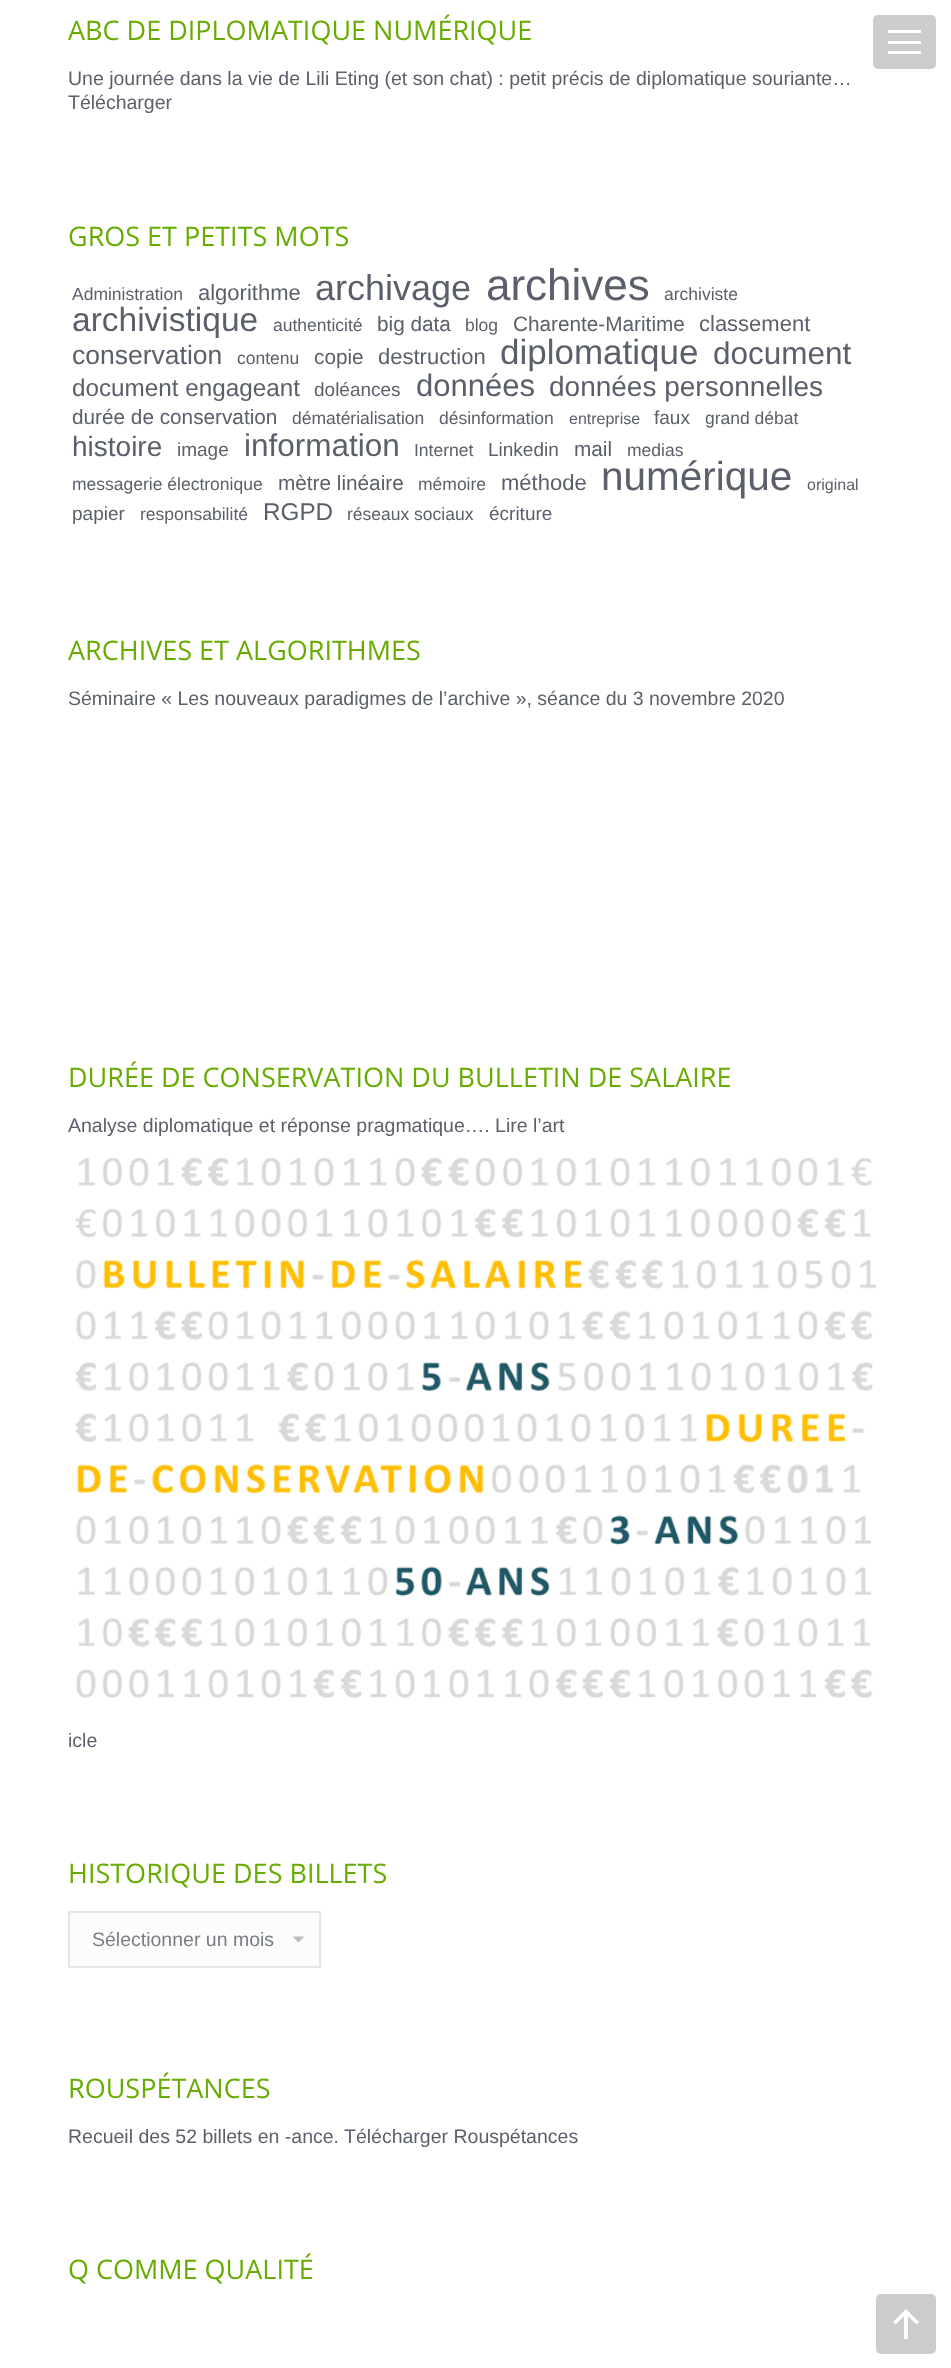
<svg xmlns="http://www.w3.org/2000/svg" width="951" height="2368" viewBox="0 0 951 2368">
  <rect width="100%" height="100%" fill="rgb(255,255,255)"/>
  <text x="68" y="40" font-family="Open Sans" font-size="27" fill="rgb(104,172,3)">ABC DE DIPLOMATIQUE NUMÉRIQUE</text>
  <g font-family="Liberation Sans" font-size="19.5" fill="rgb(91,95,107)">
    <text>
      <tspan x="68" y="85">Une journée dans la vie de Lili Eting (et son chat) : petit précis de diplomatique souriante…</tspan>
      <tspan x="68" y="109">Télécharger</tspan>
    </text>
  </g>
  <text x="68" y="246" font-family="Open Sans" font-size="27" fill="rgb(104,172,3)">GROS ET PETITS MOTS</text>
  <text x="72" y="300" font-family="Liberation Sans" font-size="17.5" fill="rgb(91,95,107)">Administration</text>
  <text x="198" y="300" font-family="Liberation Sans" font-size="22" fill="rgb(91,95,107)">algorithme</text>
  <text x="315" y="300" font-family="Liberation Sans" font-size="36" fill="rgb(91,95,107)">archivage</text>
  <text x="486" y="300" font-family="Liberation Sans" font-size="44" fill="rgb(91,95,107)">archives</text>
  <text x="664" y="300" font-family="Liberation Sans" font-size="17.5" fill="rgb(91,95,107)">archiviste</text>
  <text x="72" y="331" font-family="Liberation Sans" font-size="33.5" fill="rgb(91,95,107)">archivistique</text>
  <text x="273" y="331" font-family="Liberation Sans" font-size="17.5" fill="rgb(91,95,107)">authenticité</text>
  <text x="377" y="331" font-family="Liberation Sans" font-size="20.75" fill="rgb(91,95,107)">big data</text>
  <text x="465" y="331" font-family="Liberation Sans" font-size="17.5" fill="rgb(91,95,107)">blog</text>
  <text x="513" y="331" font-family="Liberation Sans" font-size="20.75" fill="rgb(91,95,107)">Charente-Maritime</text>
  <text x="699" y="331" font-family="Liberation Sans" font-size="22" fill="rgb(91,95,107)">classement</text>
  <text x="72" y="364" font-family="Liberation Sans" font-size="26.5" fill="rgb(91,95,107)">conservation</text>
  <text x="237" y="364" font-family="Liberation Sans" font-size="17.5" fill="rgb(91,95,107)">contenu</text>
  <text x="314" y="364" font-family="Liberation Sans" font-size="20.75" fill="rgb(91,95,107)">copie</text>
  <text x="378" y="364" font-family="Liberation Sans" font-size="22" fill="rgb(91,95,107)">destruction</text>
  <text x="500" y="364" font-family="Liberation Sans" font-size="35" fill="rgb(91,95,107)">diplomatique</text>
  <text x="713" y="364" font-family="Liberation Sans" font-size="31.5" fill="rgb(91,95,107)">document</text>
  <text x="72" y="396" font-family="Liberation Sans" font-size="24.25" fill="rgb(91,95,107)">document engageant</text>
  <text x="314" y="396" font-family="Liberation Sans" font-size="19" fill="rgb(91,95,107)">doléances</text>
  <text x="416" y="396" font-family="Liberation Sans" font-size="31" fill="rgb(91,95,107)">données</text>
  <text x="549" y="396" font-family="Liberation Sans" font-size="28" fill="rgb(91,95,107)">données personnelles</text>
  <text x="72" y="424" font-family="Liberation Sans" font-size="20.75" fill="rgb(91,95,107)">durée de conservation</text>
  <g font-family="Liberation Sans" font-size="17.5" fill="rgb(91,95,107)">
    <text x="292" y="424">dématérialisation</text>
    <text x="439" y="424">désinformation</text>
  </g>
  <text x="569" y="424" font-family="Liberation Sans" font-size="16" fill="rgb(91,95,107)">entreprise</text>
  <text x="654" y="424" font-family="Liberation Sans" font-size="19" fill="rgb(91,95,107)">faux</text>
  <text x="705" y="424" font-family="Liberation Sans" font-size="17.5" fill="rgb(91,95,107)">grand débat</text>
  <text x="72" y="456" font-family="Liberation Sans" font-size="28" fill="rgb(91,95,107)">histoire</text>
  <text x="177" y="456" font-family="Liberation Sans" font-size="19" fill="rgb(91,95,107)">image</text>
  <text x="244" y="456" font-family="Liberation Sans" font-size="31.5" fill="rgb(91,95,107)">information</text>
  <text x="414" y="456" font-family="Liberation Sans" font-size="17.5" fill="rgb(91,95,107)">Internet</text>
  <text x="488" y="456" font-family="Liberation Sans" font-size="19" fill="rgb(91,95,107)">Linkedin</text>
  <text x="574" y="456" font-family="Liberation Sans" font-size="20.75" fill="rgb(91,95,107)">mail</text>
  <g font-family="Liberation Sans" font-size="17.5" fill="rgb(91,95,107)">
    <text x="627" y="456">medias</text>
    <text x="72" y="490">messagerie électronique</text>
  </g>
  <text x="278" y="490" font-family="Liberation Sans" font-size="20.75" fill="rgb(91,95,107)">mètre linéaire</text>
  <text x="418" y="490" font-family="Liberation Sans" font-size="17.5" fill="rgb(91,95,107)">mémoire</text>
  <text x="501" y="490" font-family="Liberation Sans" font-size="22" fill="rgb(91,95,107)">méthode</text>
  <text x="601" y="490" font-family="Liberation Sans" font-size="40.5" fill="rgb(91,95,107)">numérique</text>
  <text x="807" y="490" font-family="Liberation Sans" font-size="16" fill="rgb(91,95,107)">original</text>
  <text x="72" y="520" font-family="Liberation Sans" font-size="19" fill="rgb(91,95,107)">papier</text>
  <text x="140" y="520" font-family="Liberation Sans" font-size="17.5" fill="rgb(91,95,107)">responsabilité</text>
  <text x="263" y="520" font-family="Liberation Sans" font-size="24.25" fill="rgb(91,95,107)">RGPD</text>
  <text x="347" y="520" font-family="Liberation Sans" font-size="17.5" fill="rgb(91,95,107)">réseaux sociaux</text>
  <text x="489" y="520" font-family="Liberation Sans" font-size="19" fill="rgb(91,95,107)">écriture</text>
  <text x="68" y="660" font-family="Open Sans" font-size="27" fill="rgb(104,172,3)">ARCHIVES ET ALGORITHMES</text>
  <text x="68" y="705" font-family="Liberation Sans" font-size="19.5" fill="rgb(91,95,107)">Séminaire « Les nouveaux paradigmes de l’archive », séance du 3 novembre 2020</text>
  <text x="68" y="1087" font-family="Open Sans" font-size="27" fill="rgb(104,172,3)">DURÉE DE CONSERVATION DU BULLETIN DE SALAIRE</text>
  <text x="68" y="1132" font-family="Liberation Sans" font-size="19.5" fill="rgb(91,95,107)">Analyse diplomatique et réponse pragmatique…. Lire l’art</text>
  <image x="75" y="1157" width="802" height="541" href="pic1.png"/>
  <text x="68" y="1747" font-family="Liberation Sans" font-size="19.5" fill="rgb(91,95,107)">icle</text>
  <text x="68" y="1883" font-family="Open Sans" font-size="27" fill="rgb(104,172,3)">HISTORIQUE DES BILLETS</text>
  <rect x="70" y="1913" width="249" height="53" fill="rgb(252,252,252)"/>
  <path d="M292.5 1936.5L298.5 1942.5L304.5 1936.5Z" fill="rgb(186,189,193)"/>
  <rect x="69" y="1912" width="251" height="55" fill="none" stroke="rgb(228,229,231)" stroke-width="2"/>
  <text x="92" y="1946" font-family="Liberation Sans" font-size="19.5" fill="rgb(120,125,133)">Sélectionner un mois</text>
  <text x="68" y="2098" font-family="Open Sans" font-size="27" fill="rgb(104,172,3)">ROUSPÉTANCES</text>
  <g font-family="Liberation Sans" font-size="19.5" fill="rgb(91,95,107)">
    <text x="68" y="2143">Recueil des 52 billets en -ance.</text>
    <text x="344" y="2143">Télécharger Rouspétances</text>
  </g>
  <text x="68" y="2279" font-family="Open Sans" font-size="27" fill="rgb(104,172,3)">Q COMME QUALITÉ</text>
  <rect x="873" y="15" width="63" height="54" rx="5" fill="rgb(204,204,204)"/>
  <rect x="888" y="30" width="33" height="3" fill="rgb(255,255,255)"/>
  <rect x="888" y="41" width="33" height="3" fill="rgb(255,255,255)"/>
  <rect x="888" y="51" width="33" height="3" fill="rgb(255,255,255)"/>
  <rect x="876" y="2294" width="60" height="60" rx="5" fill="rgb(204,204,204)"/>
  <path d="M893 2322L895.5 2324.5L904 2316V2339H908V2316L916.5 2324.5L919 2322L906 2309Z" fill="rgb(255,255,255)"/>
</svg>
